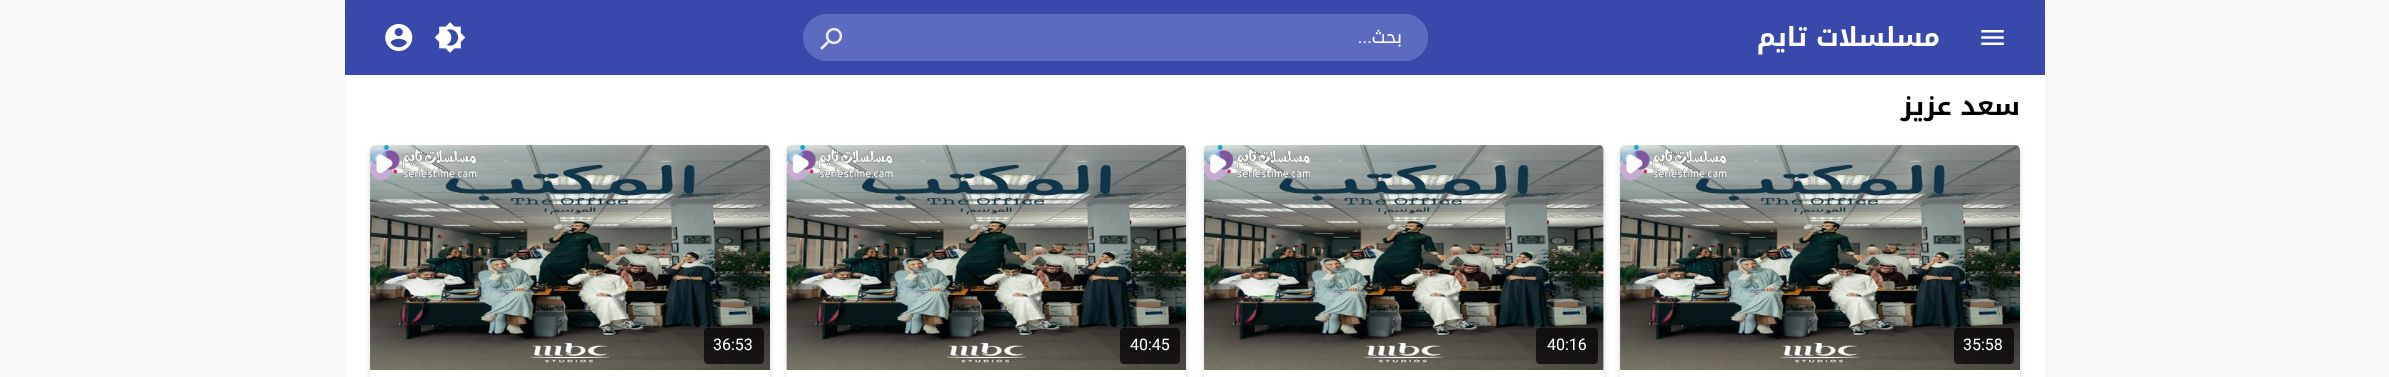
<svg xmlns="http://www.w3.org/2000/svg" width="2389" height="377" viewBox="0 0 2389 377">
  <defs>
    <clipPath id="clip1"><path d="M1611 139H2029V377H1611ZM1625 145H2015C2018 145 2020 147 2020 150V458C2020 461 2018 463 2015 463H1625C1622 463 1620 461 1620 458V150C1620 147 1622 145 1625 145Z" clip-rule="evenodd"/></clipPath>
    <clipPath id="clip2"><path d="M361 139H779V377H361ZM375 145H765C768 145 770 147 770 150V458C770 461 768 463 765 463H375C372 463 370 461 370 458V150C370 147 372 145 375 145Z" clip-rule="evenodd"/></clipPath>
  </defs>
  <rect width="100%" height="100%" fill="rgb(248,248,248)"/>
  <rect x="345" y="75" width="1700" height="302" fill="rgb(255,255,255)"/>
  <rect x="351" y="9" width="1688" height="62" fill="rgb(153,153,153)" filter="blur(3px)"/>
  <rect x="345" y="0" width="1700" height="75" fill="rgb(57,73,171)"/>
  <image x="1981" y="30" width="23" height="15" href="pic1.png"/>
  <text x="1940" y="46" font-family="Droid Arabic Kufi" font-size="26.25" font-weight="bold" direction="rtl" fill="rgb(255,255,255)">مسلسلات تايم</text>
  <rect x="803" y="14" width="625" height="47" rx="23.5" fill="rgb(92,107,192)"/>
  <path d="M865 14H1404.5C1417.5 14 1428 24.5 1428 37.5C1428 50.5 1417.5 61 1404.5 61H865Z" fill="rgb(92,107,192)"/>
  <text x="1402" y="43" font-family="Droid Arabic Kufi" font-size="18" direction="rtl" fill="rgb(255,255,255)">بحث</text>
  <text x="1372" y="43" font-family="Roboto" font-size="18" direction="rtl" fill="rgb(255,255,255)">...</text>
  <image x="820" y="27" width="23" height="23" href="pic2.png"/>
  <image x="434" y="22" width="32" height="31" href="pic3.png"/>
  <image x="385" y="24" width="28" height="27" href="pic4.png"/>
  <text x="2020" y="115" font-family="Droid Arabic Kufi" font-size="26.25" font-weight="bold" direction="rtl" fill="rgb(0,0,0)">سعد عزيز</text>
  <g clip-path="url(#clip1)">
    <rect x="1621" y="149" width="398" height="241" rx="4" fill="rgb(204,204,204)" filter="blur(3px)"/>
  </g>
  <image x="1620" y="145" width="400" height="225" href="pic5.png"/>
  <rect x="1954" y="328" width="60" height="36" rx="4" fill="rgba(0,0,0,0.7)"/>
  <text x="1963" y="350" font-family="Roboto" font-size="16" fill="rgb(255,255,255)">35:58</text>
  <rect x="1205" y="149" width="398" height="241" rx="4" fill="rgb(204,204,204)" filter="blur(3px)"/>
  <rect x="1204" y="145" width="400" height="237" rx="5" fill="rgb(255,255,255)"/>
  <image x="1204" y="145" width="400" height="225" href="pic6.png"/>
  <rect x="1536" y="328" width="62" height="36" rx="4" fill="rgba(0,0,0,0.7)"/>
  <text x="1547" y="350" font-family="Roboto" font-size="16" fill="rgb(255,255,255)">40:16</text>
  <rect x="788" y="149" width="397" height="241" rx="4" fill="rgb(204,204,204)" filter="blur(3px)"/>
  <rect x="786" y="145" width="400" height="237" rx="5" fill="rgb(255,255,255)"/>
  <image x="786" y="145" width="400" height="225" href="pic7.png"/>
  <rect x="1120" y="328" width="60" height="36" rx="4" fill="rgba(0,0,0,0.7)"/>
  <text x="1130" y="350" font-family="Roboto" font-size="16" fill="rgb(255,255,255)">40:45</text>
  <g clip-path="url(#clip2)">
    <rect x="371" y="149" width="398" height="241" rx="4" fill="rgb(204,204,204)" filter="blur(3px)"/>
  </g>
  <image x="370" y="145" width="400" height="225" href="pic8.png"/>
  <rect x="704" y="328" width="60" height="36" rx="4" fill="rgba(0,0,0,0.7)"/>
  <text x="713" y="350" font-family="Roboto" font-size="16" fill="rgb(255,255,255)">36:53</text>
</svg>
